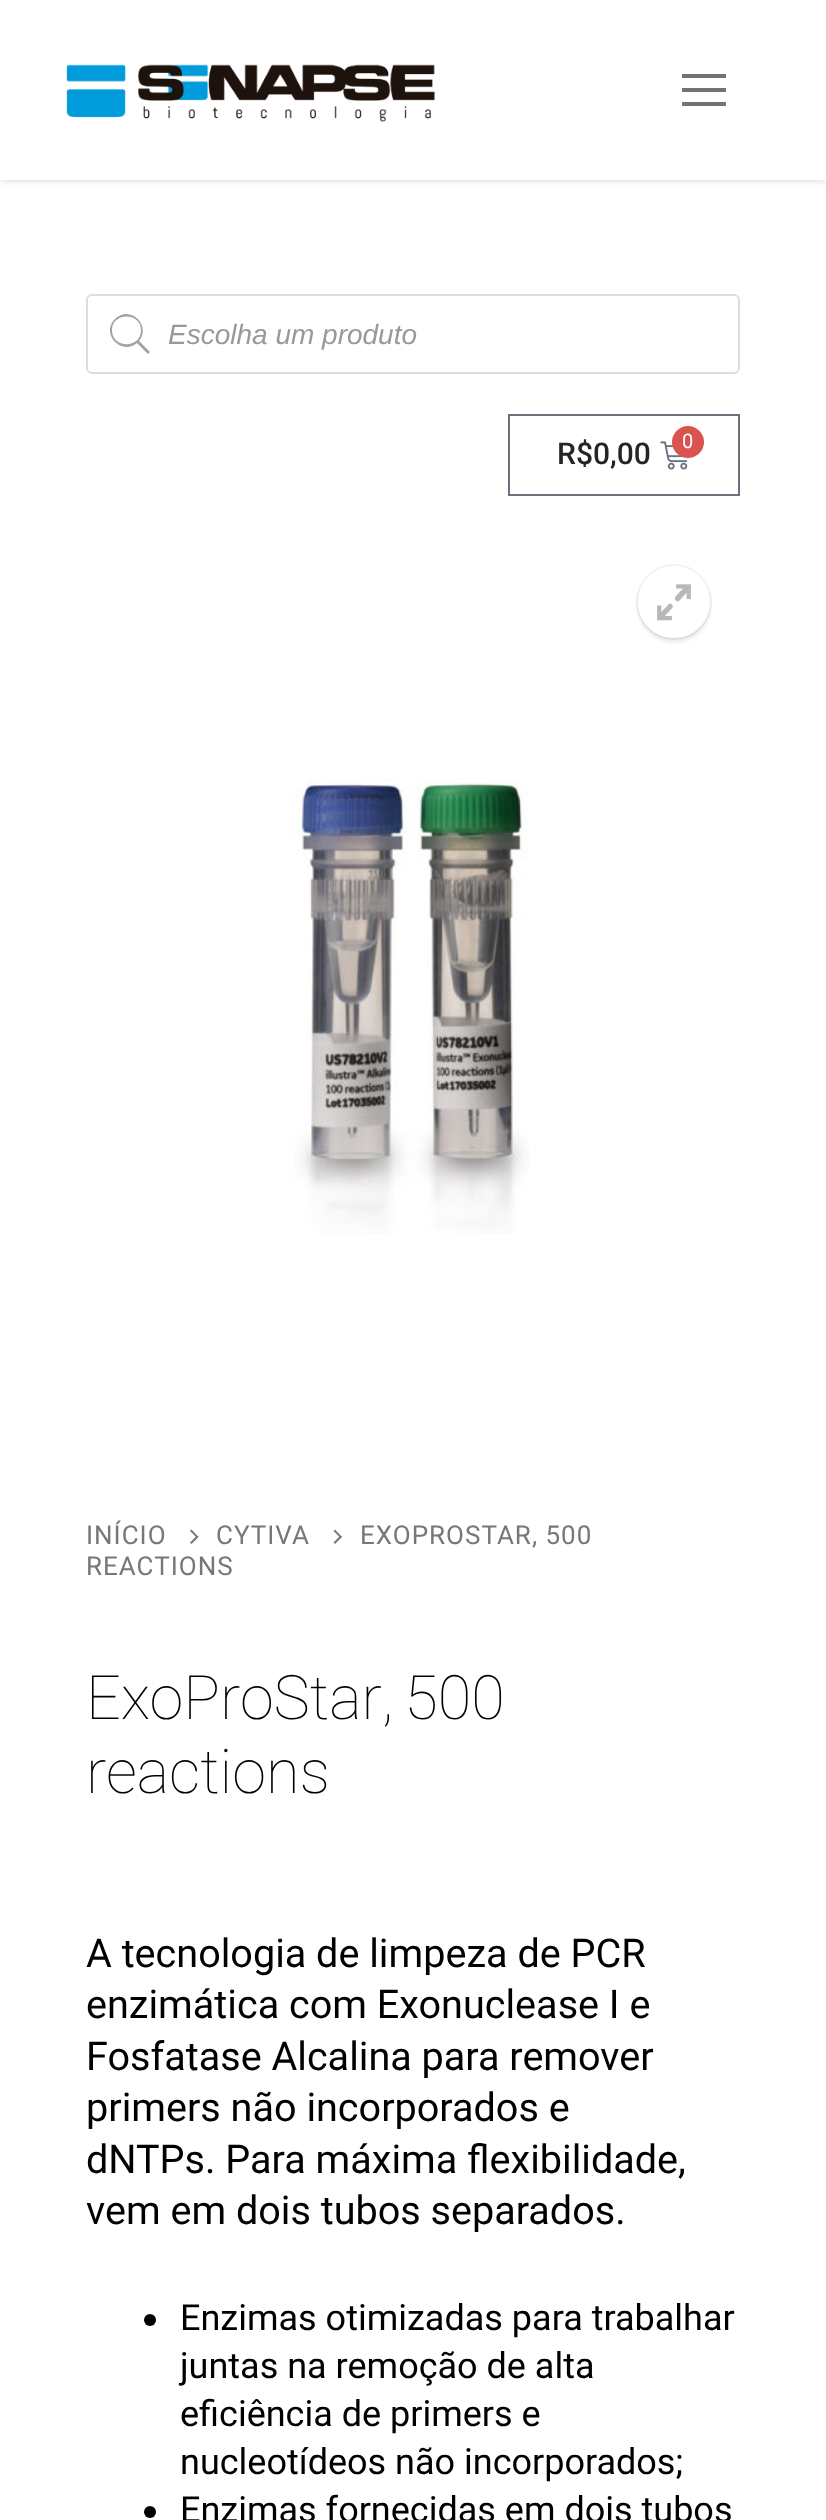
<svg xmlns="http://www.w3.org/2000/svg" width="826" height="2520" viewBox="0 0 826 2520">
  <defs>
    <clipPath id="clip1"><rect x="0" y="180" width="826" height="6"/></clipPath>
    <clipPath id="clip2"><path d="M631 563H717V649H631ZM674 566C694 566 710 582 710 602C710 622 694 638 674 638C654 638 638 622 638 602C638 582 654 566 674 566Z" clip-rule="evenodd"/></clipPath>
  </defs>
  <rect width="100%" height="100%" fill="rgb(255,255,255)"/>
  <g clip-path="url(#clip1)">
    <rect x="0" y="2" width="826" height="180" fill="rgb(225,229,234)" filter="blur(2px)"/>
  </g>
  <image x="66" y="64" width="369" height="58" href="pic1.png"/>
  <rect x="682" y="88" width="44" height="4" fill="rgb(115,115,115)"/>
  <rect x="682" y="74" width="44" height="4" fill="rgb(115,115,115)"/>
  <rect x="682" y="102" width="44" height="4" fill="rgb(115,115,115)"/>
  <rect x="87" y="295" width="652" height="78" rx="5" fill="none" stroke="rgb(221,221,221)" stroke-width="2"/>
  <path d="M150 352L139 341C152 326 130 304 115 319C100 334 122 356 137 343L148 354ZM112 330C112 312 141 312 141 330C141 349 112 349 112 330Z" fill="rgb(162,162,162)"/>
  <text x="168" y="344" font-family="Liberation Sans" font-size="28" font-style="italic" fill="rgb(153,153,153)">Escolha um produto</text>
  <rect x="509" y="415" width="230" height="80" fill="none" stroke="rgb(105,114,125)" stroke-width="2"/>
  <text x="557" y="464" font-family="Roboto" font-size="30" font-weight="500" fill="rgb(37,37,37)">R$0,00</text>
  <image x="660" y="441" width="28" height="29" href="pic2.png"/>
  <circle cx="688" cy="442" r="16" fill="rgb(217,83,79)"/>
  <text x="682" y="448" font-family="Roboto" font-size="20" fill="rgb(255,255,255)">0</text>
  <circle cx="674" cy="602" r="37" fill="none" stroke="rgb(243,243,243)" stroke-width="2"/>
  <g clip-path="url(#clip2)">
    <rect x="638" y="570" width="72" height="72" rx="36" fill="rgba(102,102,102,0.16)" filter="blur(2px)"/>
  </g>
  <circle cx="674" cy="602" r="36" fill="rgba(255,255,255,0.5)"/>
  <image x="657" y="584" width="34" height="37" href="pic3.png"/>
  <image x="287" y="778" width="242" height="456" href="pic4.png"/>
  <text x="86" y="1544" font-family="Roboto" font-size="26" letter-spacing="1" fill="rgb(119,119,119)">INÍCIO</text>
  <path d="M198.5 1537L191.5 1544L190 1542.5L197 1535.5Z" fill="rgb(119,119,119)"/>
  <path d="M198.5 1537L197 1538L190 1531L191.5 1529.5Z" fill="rgb(119,119,119)"/>
  <text x="216" y="1544" font-family="Roboto" font-size="26" letter-spacing="1" fill="rgb(119,119,119)">CYTIVA</text>
  <path d="M342 1537L335 1544L333.5 1542.5L340.5 1535.5Z" fill="rgb(119,119,119)"/>
  <path d="M342 1537L340.5 1538L333.5 1531L335 1529.5Z" fill="rgb(119,119,119)"/>
  <g font-family="Roboto" font-size="26" letter-spacing="1" fill="rgb(119,119,119)">
    <text x="360" y="1544">EXOPROSTAR, 500</text>
    <text x="86" y="1575">REACTIONS</text>
  </g>
  <g font-family="Roboto" font-size="61.25" font-weight="100" fill="rgb(0,0,0)">
    <text>
      <tspan x="86" y="1719" word-spacing="-4">ExoProStar, 500</tspan>
      <tspan x="86" y="1793">reactions</tspan>
    </text>
  </g>
  <g font-family="Roboto" font-size="39.6" fill="rgb(0,0,0)">
    <text>
      <tspan x="86" y="1967">A tecnologia de limpeza de PCR</tspan>
      <tspan x="86" y="2018">enzimática com Exonuclease I e</tspan>
      <tspan x="86" y="2070">Fosfatase Alcalina para remover</tspan>
      <tspan x="86" y="2121">primers não incorporados e</tspan>
      <tspan x="86" y="2173">dNTPs. Para máxima flexibilidade,</tspan>
      <tspan x="86" y="2224">vem em dois tubos separados.</tspan>
    </text>
  </g>
  <circle cx="150" cy="2320" r="6" fill="rgb(0,0,0)"/>
  <g font-family="Roboto" font-size="36" fill="rgb(0,0,0)">
    <text>
      <tspan x="180" y="2330">Enzimas otimizadas para trabalhar</tspan>
      <tspan x="180" y="2378">juntas na remoção de alta</tspan>
      <tspan x="180" y="2426">eficiência de primers e</tspan>
      <tspan x="180" y="2474">nucleotídeos não incorporados;</tspan>
    </text>
  </g>
  <circle cx="150" cy="2512" r="6" fill="rgb(0,0,0)"/>
  <text x="180" y="2522" font-family="Roboto" font-size="36" fill="rgb(0,0,0)">Enzimas fornecidas em dois tubos</text>
</svg>
